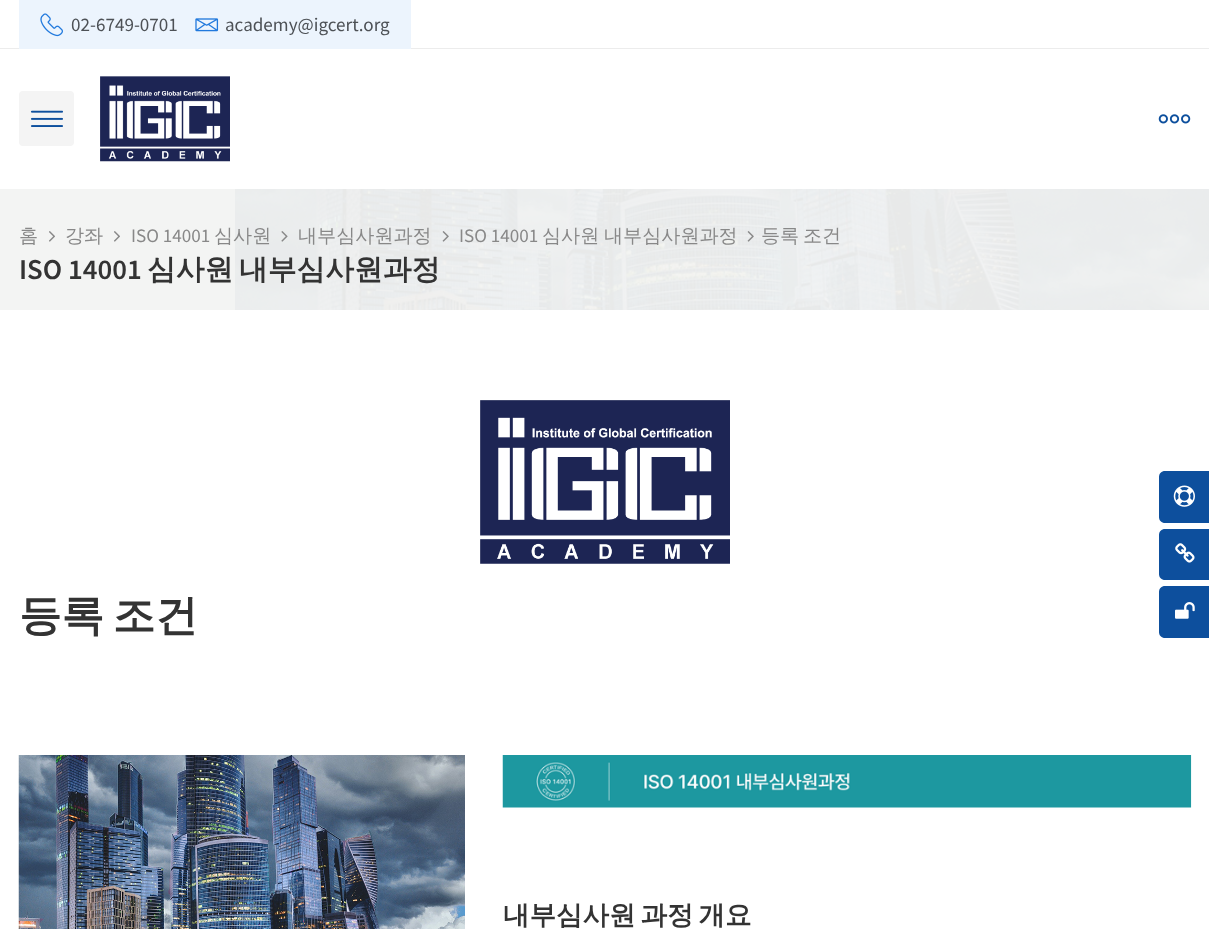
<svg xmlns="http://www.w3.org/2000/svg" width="1209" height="929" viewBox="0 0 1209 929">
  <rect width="100%" height="100%" fill="rgb(255,255,255)"/>
  <rect x="0" y="48" width="1209" height="1" fill="rgb(236,236,236)"/>
  <rect x="19" y="0" width="392" height="49" fill="rgb(236,244,253)"/>
  <image x="40" y="13" width="23" height="24" href="pic1.png"/>
  <text x="71" y="31" font-family="Source Sans Pro" font-size="19.1" fill="rgb(77,81,86)">02-6749-0701</text>
  <image x="195" y="18" width="24" height="14" href="pic2.png"/>
  <text x="225" y="31" font-family="Source Sans Pro" font-size="19.1" fill="rgb(77,81,86)">academy@igcert.org</text>
  <rect x="19" y="91" width="55" height="55" rx="4" fill="rgb(244,244,244)"/>
  <image x="30" y="110" width="33" height="17" href="pic3.png"/>
  <image x="100" y="76" width="130" height="86" href="pic4.png"/>
  <image x="1158" y="114" width="33" height="10" href="pic5.png"/>
  <rect x="0" y="189" width="235" height="121" fill="rgb(243,244,243)"/>
  <image x="235" y="189" width="974" height="121" href="pic6.png"/>
  <text x="19" y="242" font-family="WenQuanYi Zen Hei" font-size="19.1" font-weight="500" fill="rgb(136,136,136)">홈</text>
  <image x="49" y="231" width="6" height="11" href="pic7.png"/>
  <text x="65" y="242" font-family="WenQuanYi Zen Hei" font-size="19.1" font-weight="500" fill="rgb(136,136,136)">강좌</text>
  <image x="114" y="231" width="6" height="11" href="pic7.png"/>
  <text x="131" y="242" font-family="Source Sans Pro" font-size="19.1" fill="rgb(136,136,136)">ISO 14001</text>
  <text x="214" y="242" font-family="WenQuanYi Zen Hei" font-size="19.1" font-weight="500" fill="rgb(136,136,136)">심사원</text>
  <image x="281" y="231" width="7" height="11" href="pic8.png"/>
  <text x="298" y="242" font-family="WenQuanYi Zen Hei" font-size="19.1" font-weight="500" fill="rgb(136,136,136)">내부심사원과정</text>
  <image x="442" y="231" width="7" height="11" href="pic9.png"/>
  <text x="459" y="242" font-family="Source Sans Pro" font-size="19.1" fill="rgb(136,136,136)">ISO 14001</text>
  <g font-family="WenQuanYi Zen Hei" font-size="19.1" font-weight="500" fill="rgb(136,136,136)">
    <text x="542" y="242">심사원</text>
    <text x="604" y="242">내부심사원과정</text>
  </g>
  <image x="747" y="231" width="7" height="11" href="pic10.png"/>
  <text x="761" y="242" word-spacing="-2" font-family="WenQuanYi Zen Hei" font-size="19.1" font-weight="500" fill="rgb(136,136,136)">등록 조건</text>
  <text x="19" y="279" font-family="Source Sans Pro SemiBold" font-size="28.75" font-weight="600" fill="rgb(51,51,51)">ISO 14001</text>
  <g font-family="WenQuanYi Zen Hei" font-size="28.75" font-weight="bold" fill="rgb(51,51,51)">
    <text x="147" y="279">심사원</text>
    <text x="239" y="279">내부심사원과정</text>
  </g>
  <image x="480" y="400" width="250" height="164" href="pic11.png"/>
  <text x="19" y="630" word-spacing="-4" font-family="WenQuanYi Zen Hei" font-size="42.5" font-weight="bold" fill="rgb(51,51,51)">등록 조건</text>
  <image x="18" y="755" width="447" height="174" href="pic12.png"/>
  <image x="502" y="755" width="690" height="53" href="pic13.png"/>
  <text x="503" y="924" word-spacing="-3" font-family="WenQuanYi Zen Hei" font-size="26.5" font-weight="bold" fill="rgb(51,51,51)">내부심사원 과정 개요</text>
  <path d="M1165 471H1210V523H1165C1161.5 523 1159 520.5 1159 517V477C1159 473.5 1161.5 471 1165 471Z" fill="rgb(13,79,157)"/>
  <image x="1173" y="485" width="22" height="22" href="pic14.png"/>
  <path d="M1165 529H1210V580H1165C1161.5 580 1159 577.5 1159 574V535C1159 531.5 1161.5 529 1165 529Z" fill="rgb(13,79,157)"/>
  <image x="1175" y="543" width="20" height="20" href="pic15.png"/>
  <path d="M1165 586H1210V638H1165C1161.5 638 1159 635.5 1159 632V592C1159 588.5 1161.5 586 1165 586Z" fill="rgb(13,79,157)"/>
  <image x="1175" y="602" width="20" height="17" href="pic16.png"/>
</svg>
